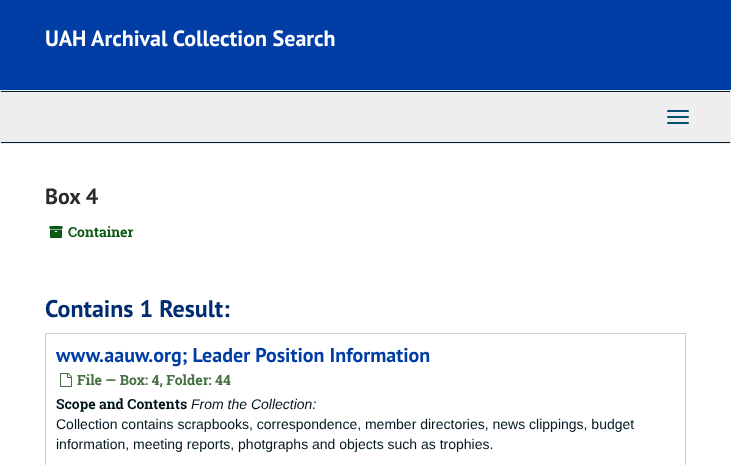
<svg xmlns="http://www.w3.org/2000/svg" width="731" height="465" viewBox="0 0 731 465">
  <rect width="100%" height="100%" fill="rgb(255,255,255)"/>
  <rect x="0" y="0" width="731" height="90" fill="rgb(0,61,165)"/>
  <text x="45" y="46" font-family="PT Sans" font-size="22" font-weight="bold" fill="rgb(255,255,255)">UAH Archival Collection Search</text>
  <rect x="0" y="90" width="731" height="54" fill="rgb(238,238,238)"/>
  <rect x="1" y="91" width="729" height="1" fill="rgb(4,28,47)"/>
  <rect x="1" y="142" width="729" height="1" fill="rgb(4,28,47)"/>
  <rect x="667" y="110" width="22" height="2" rx="1" fill="rgb(0,79,111)"/>
  <rect x="667" y="116" width="22" height="2" rx="1" fill="rgb(0,79,111)"/>
  <rect x="667" y="122" width="22" height="2" rx="1" fill="rgb(0,79,111)"/>
  <text x="45" y="204" font-family="PT Sans" font-size="22" font-weight="bold" fill="rgb(44,42,41)">Box 4</text>
  <image x="49" y="226" width="14" height="12" href="pic1.png"/>
  <text x="68" y="237" font-family="Roboto Slab" font-size="14" font-weight="bold" fill="rgb(11,90,20)">Container</text>
  <text x="45" y="317" font-family="PT Sans" font-size="24" font-weight="bold" fill="rgb(0,45,114)">Contains 1 Result:</text>
  <rect x="45.5" y="333.5" width="640" height="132" fill="none" stroke="rgb(204,204,204)"/>
  <text x="56" y="362" font-family="PT Sans" font-size="20" font-weight="bold" fill="rgb(0,61,165)">www.aauw.org; Leader Position Information</text>
  <image x="60" y="373" width="12" height="14" href="pic2.png"/>
  <text x="77" y="385" font-family="Roboto Slab" font-size="14" font-weight="bold" fill="rgb(69,113,65)">File — Box: 4, Folder: 44</text>
  <text x="56" y="409" font-family="Roboto Slab" font-size="14" font-weight="bold" fill="rgb(0,23,31)">Scope and Contents</text>
  <text x="191" y="409" font-family="Liberation Sans" font-size="14" font-style="italic" fill="rgb(0,23,31)">From the Collection:</text>
  <g font-family="Liberation Sans" font-size="14" fill="rgb(0,23,31)">
    <text>
      <tspan x="56" y="429">Collection contains scrapbooks, correspondence, member directories, news clippings, budget</tspan>
      <tspan x="56" y="449">information, meeting reports, photgraphs and objects such as trophies.</tspan>
    </text>
  </g>
</svg>
